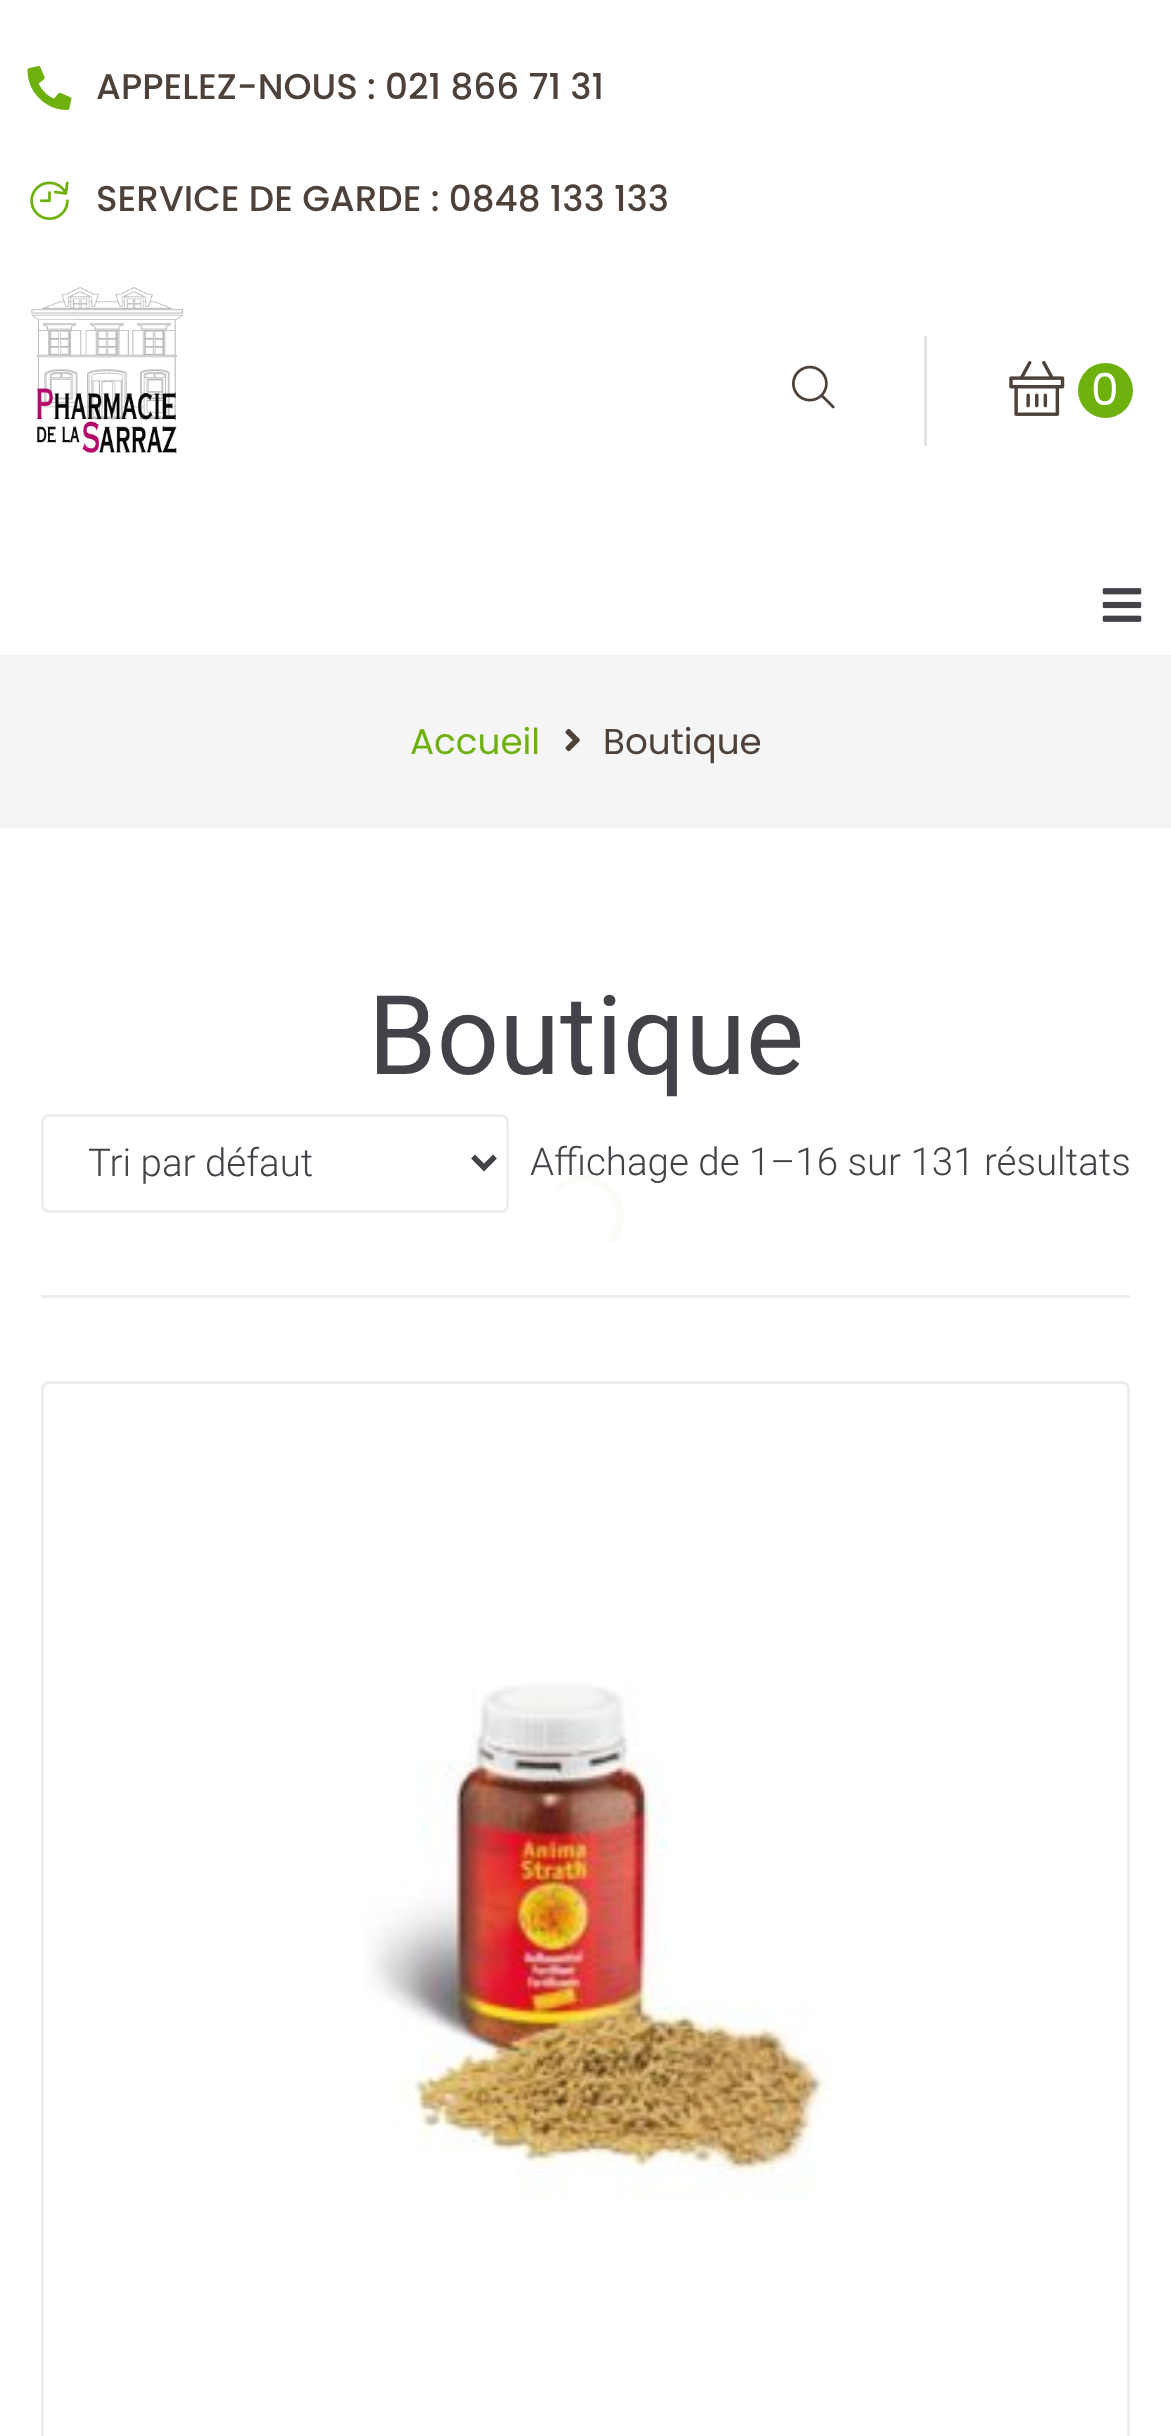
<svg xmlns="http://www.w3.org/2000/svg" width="1171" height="2436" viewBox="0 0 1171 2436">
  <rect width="100%" height="100%" fill="rgb(255,255,255)"/>
  <image x="27" y="66" width="45" height="44" href="pic1.png"/>
  <text x="96" y="99" font-family="Poppins" font-size="35.75" font-weight="500" fill="rgb(77,65,57)">APPELEZ-NOUS : 021 866 71 31</text>
  <image x="30" y="181" width="39" height="39" href="pic2.png"/>
  <text x="96" y="211" font-family="Poppins" font-size="35.75" font-weight="500" fill="rgb(77,65,57)">SERVICE DE GARDE : 0848 133 133</text>
  <image x="31" y="287" width="153" height="167" href="pic3.png"/>
  <image x="792" y="365" width="43" height="44" href="pic4.png"/>
  <rect x="924" y="336" width="3" height="110" fill="rgb(230,230,230)"/>
  <image x="1009" y="361" width="56" height="55" href="pic5.png"/>
  <circle cx="1105.5" cy="390.5" r="27.5" fill="rgb(110,177,14)"/>
  <text x="1091" y="405" font-family="Poppins" font-size="44" fill="rgb(255,255,255)">0</text>
  <image x="1102" y="588" width="40" height="34" href="pic6.png"/>
  <rect x="0" y="655" width="1171" height="173" fill="rgb(245,245,245)"/>
  <text x="410" y="754" font-family="Poppins" font-size="35.75" fill="rgb(110,177,14)">Accueil</text>
  <image x="565" y="728" width="15" height="24" href="pic7.png"/>
  <text x="603" y="754" font-family="Poppins" font-size="35.75" fill="rgb(77,65,57)">Boutique</text>
  <text x="368" y="1074" font-family="Roboto" font-size="110" fill="rgb(65,67,72)">Boutique</text>
  <rect x="41" y="1295" width="1089" height="3" fill="rgb(236,237,238)"/>
  <rect x="42.5" y="1115.5" width="465" height="96" rx="6.5" fill="none" stroke="rgb(236,237,238)" stroke-width="3"/>
  <path d="M473 1156.5L484 1167.5L495 1156.5" fill="none" stroke="rgb(65,67,72)" stroke-width="5.5"/>
  <g font-family="Roboto" font-size="38.5" font-weight="300" fill="rgb(65,67,72)">
    <text x="88" y="1176">Tri par défaut</text>
    <text x="530" y="1175">Affichage de 1–16 sur 131 résultats</text>
  </g>
  <rect x="42.5" y="1382.5" width="1086" height="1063" rx="6.5" fill="none" stroke="rgb(236,237,238)" stroke-width="3"/>
  <image x="364" y="1681" width="467" height="518" href="pic8.png"/>
  <path d="M556.5 1189C562 1184 568.5 1180.5 575.5 1179C611.5 1172 635 1216 609.5 1242" fill="none" stroke="rgba(105,175,7,0.03)" stroke-width="8.2"/>
</svg>
